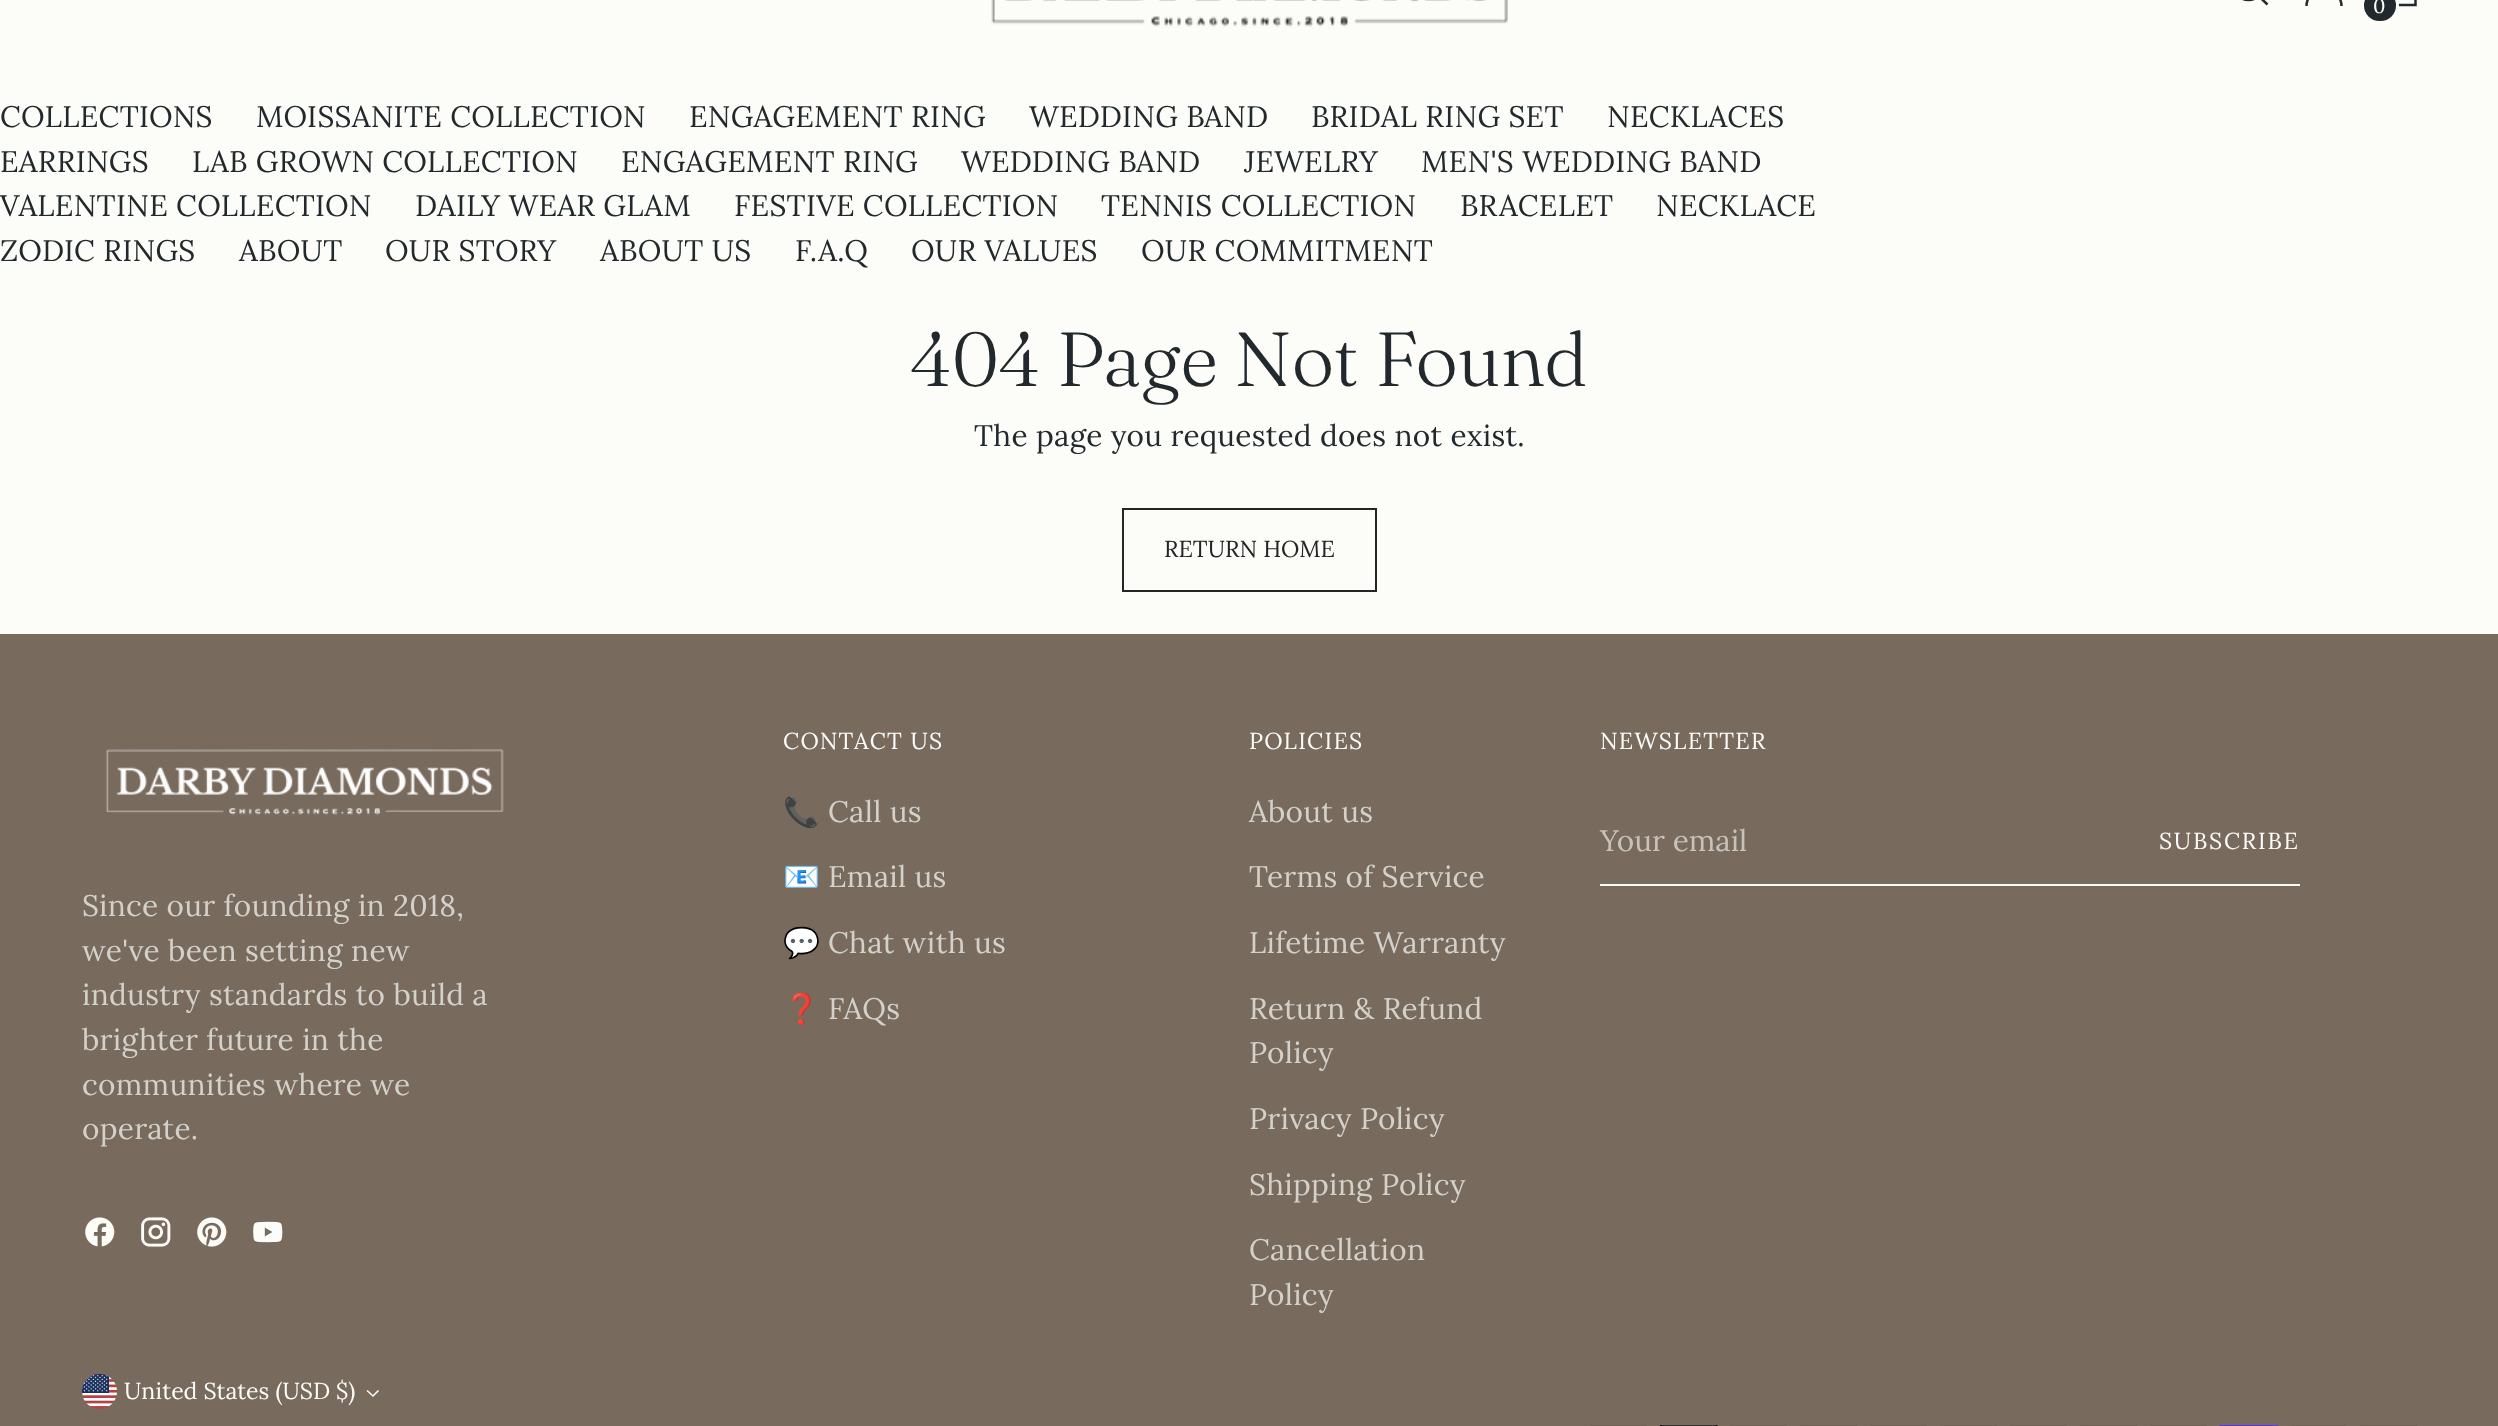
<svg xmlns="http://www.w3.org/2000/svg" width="2498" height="1426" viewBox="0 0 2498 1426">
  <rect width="100%" height="100%" fill="rgb(252,252,249)"/>
  <image x="991" y="0" width="517" height="27" href="pic1.png"/>
  <path d="M2248.5 0C2267 0 2267-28.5 2248.5-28.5C2230-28.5 2230 0 2248.5 0Z" fill="none" stroke="rgb(34,41,45)" stroke-width="2.5" stroke-linecap="round"/>
  <path d="M2258.5-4L2267.5 4.5" fill="none" stroke="rgb(34,41,45)" stroke-width="2.5"/>
  <path d="M2324-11.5C2336-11 2335.5-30 2324-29C2312.5-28.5 2312.5-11.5 2324-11.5ZM2306.5 6C2306.5-.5 2310-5.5 2317.5-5.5H2330.5C2338-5.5 2341.5-.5 2341.5 6" fill="none" stroke="rgb(34,41,45)" stroke-width="2.5"/>
  <path d="M2415.5 5V-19H2379.5V5Z" fill="none" stroke="rgb(34,41,45)" stroke-width="2.5"/>
  <rect x="2364.5" y="-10.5" width="33" height="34" rx="16.5" fill="none" stroke="rgb(252,252,249)" stroke-width="3"/>
  <rect x="2364" y="-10" width="32" height="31" rx="15.5" fill="rgb(34,41,45)"/>
  <text x="2373" y="13" font-family="Lora" font-size="20" letter-spacing="0.3" fill="rgb(252,252,249)">0</text>
  <g font-family="Lora" font-size="29.75" letter-spacing="0.3" fill="rgb(34,41,45)">
    <text x="0" y="127">COLLECTIONS</text>
    <text x="256" y="127">MOISSANITE COLLECTION</text>
    <text x="689" y="127">ENGAGEMENT RING</text>
    <text x="1029" y="127">WEDDING BAND</text>
    <text x="1311" y="127">BRIDAL RING SET</text>
    <text x="1607" y="127">NECKLACES</text>
    <text x="0" y="172">EARRINGS</text>
    <text x="192" y="172">LAB GROWN COLLECTION</text>
    <text x="621" y="172">ENGAGEMENT RING</text>
    <text x="961" y="172">WEDDING BAND</text>
    <text x="1244" y="172">JEWELRY</text>
    <text x="1421" y="172">MEN'S WEDDING BAND</text>
    <text x="0" y="216">VALENTINE COLLECTION</text>
    <text x="415" y="216">DAILY WEAR GLAM</text>
    <text x="734" y="216">FESTIVE COLLECTION</text>
    <text x="1101" y="216">TENNIS COLLECTION</text>
    <text x="1460" y="216">BRACELET</text>
    <text x="1656" y="216">NECKLACE</text>
    <text x="0" y="261">ZODIC RINGS</text>
    <text x="239" y="261">ABOUT</text>
    <text x="385" y="261">OUR STORY</text>
    <text x="600" y="261">ABOUT US</text>
    <text x="795" y="261">F.A.Q</text>
    <text x="911" y="261">OUR VALUES</text>
    <text x="1141" y="261">OUR COMMITMENT</text>
  </g>
  <text x="910" y="386" font-family="Fraunces" font-size="76.5" font-weight="300" letter-spacing="-0.4" fill="rgb(34,41,45)">404 Page Not Found</text>
  <text x="974" y="446" font-family="Lora" font-size="29.75" letter-spacing="0.3" fill="rgb(34,41,45)">The page you requested does not exist.</text>
  <rect x="1123" y="509" width="253" height="82" fill="none" stroke="rgb(36,37,38)" stroke-width="2"/>
  <text x="1164" y="557" font-family="Lora" font-size="23.1" fill="rgb(36,37,38)">RETURN HOME</text>
  <rect x="0" y="634" width="2498" height="792" fill="rgb(120,107,94)"/>
  <text x="783" y="749" font-family="Lora" font-size="23.1" letter-spacing="1.25" fill="rgb(252,252,249)">CONTACT US</text>
  <text x="783" y="822" font-family="Noto Color Emoji" font-size="29.75" letter-spacing="0.3" fill="rgb(212,209,203)">📞</text>
  <text x="828" y="822" font-family="Lora" font-size="29.75" letter-spacing="0.3" fill="rgb(212,209,203)">Call us</text>
  <text x="783" y="887" font-family="Noto Color Emoji" font-size="29.75" letter-spacing="0.3" fill="rgb(212,209,203)">📧</text>
  <text x="828" y="887" font-family="Lora" font-size="29.75" letter-spacing="0.3" fill="rgb(212,209,203)">Email us</text>
  <text x="783" y="953" font-family="Noto Color Emoji" font-size="29.75" letter-spacing="0.3" fill="rgb(212,209,203)">💬</text>
  <text x="828" y="953" font-family="Lora" font-size="29.75" letter-spacing="0.3" fill="rgb(212,209,203)">Chat with us</text>
  <text x="783" y="1019" font-family="Noto Color Emoji" font-size="29.75" letter-spacing="0.3" fill="rgb(212,209,203)">❓</text>
  <text x="828" y="1019" font-family="Lora" font-size="29.75" letter-spacing="0.3" fill="rgb(212,209,203)">FAQs</text>
  <text x="1249" y="749" font-family="Lora" font-size="23.1" letter-spacing="1.25" fill="rgb(252,252,249)">POLICIES</text>
  <g font-family="Lora" font-size="29.75" letter-spacing="0.3" fill="rgb(212,209,203)">
    <text x="1249" y="822">About us</text>
    <text x="1249" y="887">Terms of Service</text>
    <text x="1249" y="953">Lifetime Warranty</text>
    <text>
      <tspan x="1249" y="1019">Return &amp; Refund</tspan>
      <tspan x="1249" y="1063">Policy</tspan>
    </text>
    <text x="1249" y="1129">Privacy Policy</text>
    <text x="1249" y="1195">Shipping Policy</text>
    <text>
      <tspan x="1249" y="1260">Cancellation</tspan>
      <tspan x="1249" y="1305">Policy</tspan>
    </text>
  </g>
  <text x="1600" y="749" font-family="Lora" font-size="23.1" letter-spacing="1.25" fill="rgb(252,252,249)">NEWSLETTER</text>
  <rect x="1600" y="884" width="700" height="2" fill="rgb(252,252,249)"/>
  <text x="1600" y="851" font-family="Lora" font-size="29.75" fill="rgb(199,194,187)">Your email</text>
  <text x="2159" y="849" font-family="Lora" font-size="23.1" letter-spacing="1.75" fill="rgb(252,252,249)">SUBSCRIBE</text>
  <image x="105" y="749" width="399" height="66" href="pic2.png"/>
  <g font-family="Lora" font-size="29.75" letter-spacing="0.3" fill="rgb(212,209,203)">
    <text>
      <tspan x="82" y="916">Since our founding in 2018,</tspan>
      <tspan x="82" y="961">we've been setting new</tspan>
      <tspan x="82" y="1005">industry standards to build a</tspan>
      <tspan x="82" y="1050">brighter future in the</tspan>
      <tspan x="82" y="1095">communities where we</tspan>
      <tspan x="82" y="1139">operate.</tspan>
    </text>
  </g>
  <image x="85" y="1217" width="30" height="30" href="pic3.png"/>
  <image x="141" y="1217" width="30" height="30" href="pic4.png"/>
  <image x="197" y="1217" width="30" height="30" href="pic5.png"/>
  <image x="253" y="1221" width="30" height="22" href="pic6.png"/>
  <image x="82" y="1374" width="35" height="35" href="pic7.png"/>
  <g font-family="Lora" font-size="23.1" fill="rgb(252,252,249)">
    <text x="124" y="1399">United States (USD</text>
    <text x="336" y="1399">$)</text>
  </g>
  <path d="M367 1390.5L373 1396L378.5 1390.5" fill="none" stroke="rgb(252,252,249)" stroke-width="1.6"/>
  <image x="1590" y="1425" width="57" height="1" href="pic8.png"/>
  <image x="1659" y="1425" width="59" height="1" href="pic9.png"/>
  <image x="1730" y="1425" width="57" height="1" href="pic8.png"/>
  <image x="1800" y="1425" width="57" height="1" href="pic8.png"/>
  <image x="1870" y="1425" width="57" height="1" href="pic8.png"/>
  <image x="1940" y="1425" width="57" height="1" href="pic8.png"/>
  <image x="2010" y="1425" width="57" height="1" href="pic8.png"/>
  <image x="2080" y="1425" width="57" height="1" href="pic8.png"/>
  <image x="2150" y="1425" width="57" height="1" href="pic8.png"/>
  <image x="2219" y="1425" width="60" height="1" href="pic10.png"/>
  <image x="2291" y="1425" width="55" height="1" href="pic11.png"/>
  <image x="2360" y="1425" width="57" height="1" href="pic8.png"/>
</svg>
